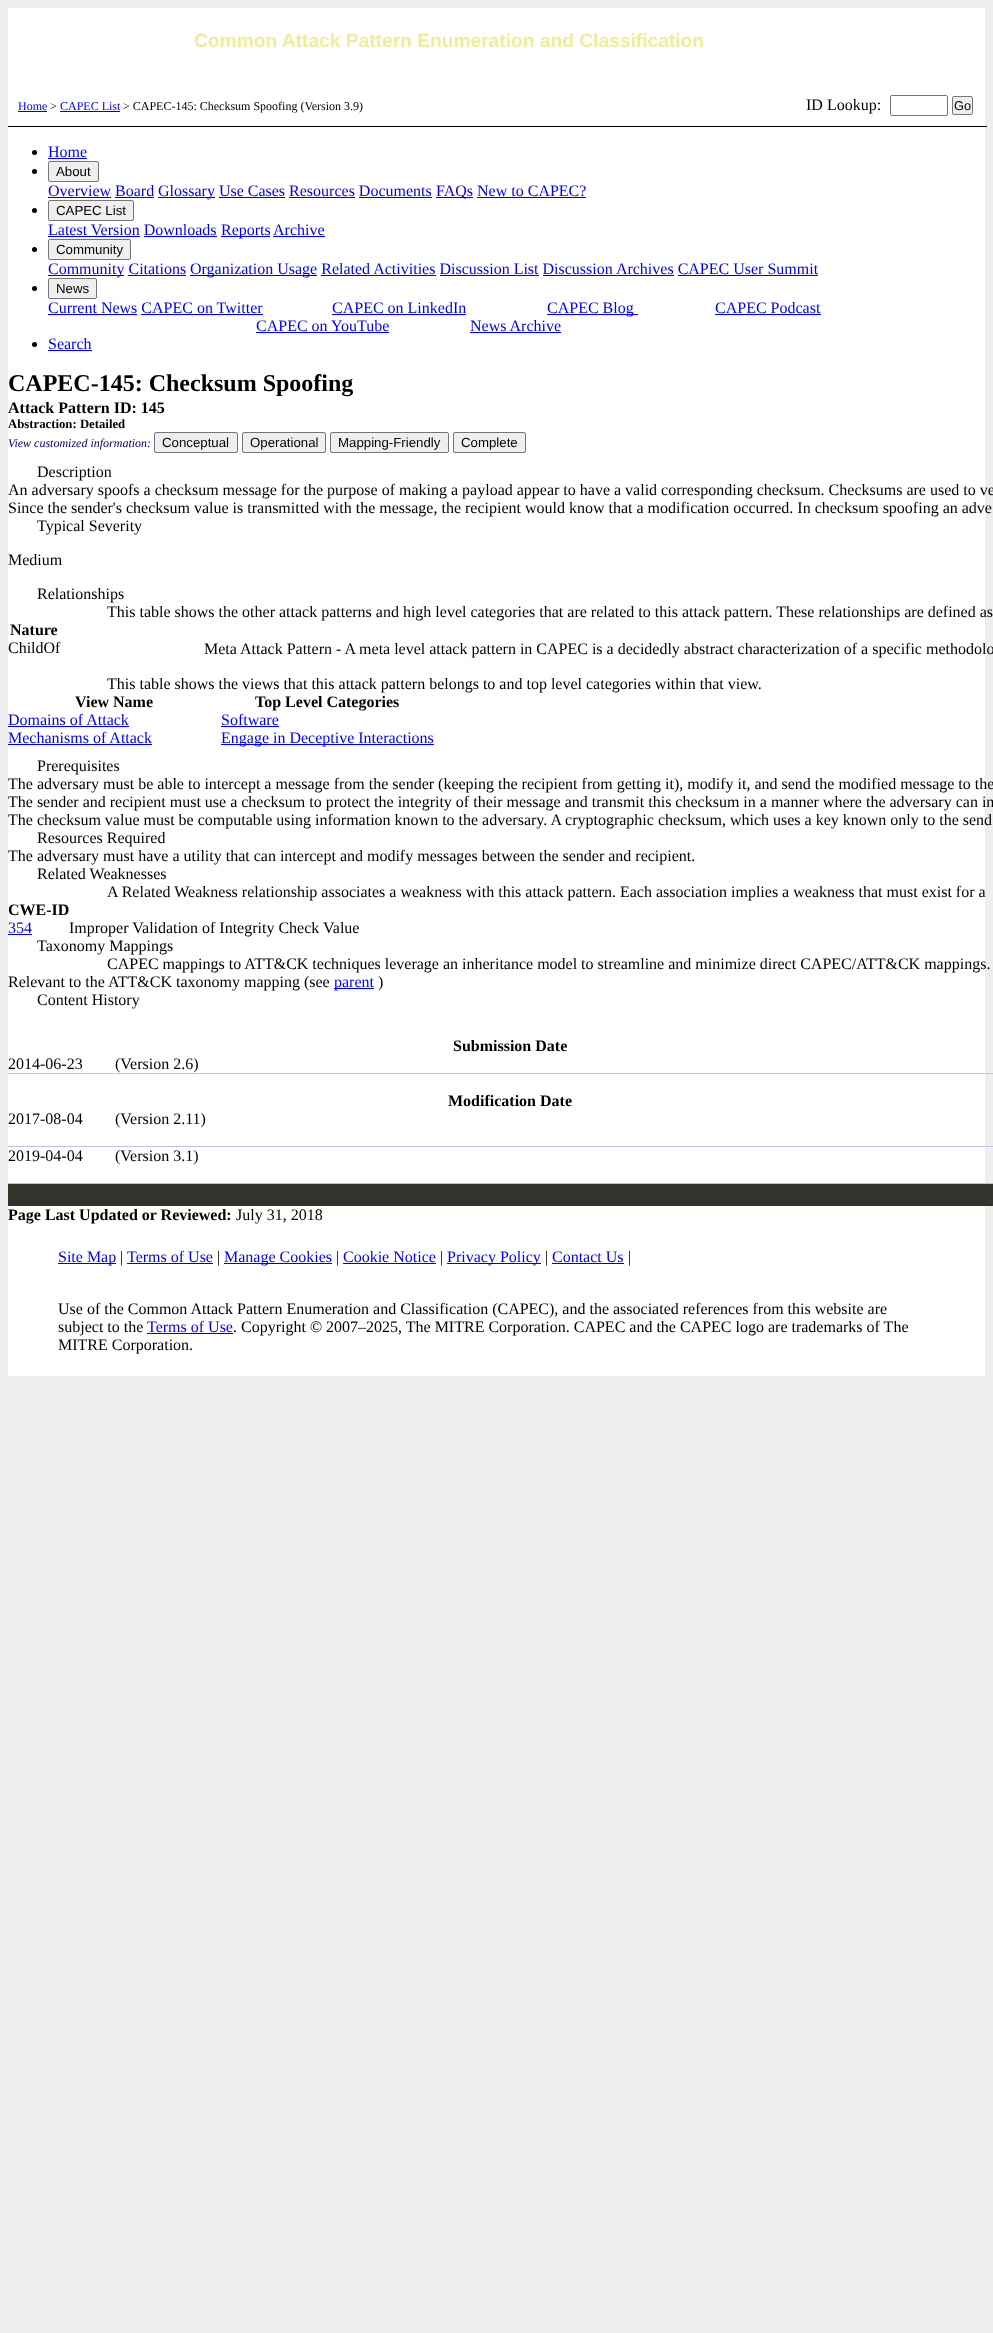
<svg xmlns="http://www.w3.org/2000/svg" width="993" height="2333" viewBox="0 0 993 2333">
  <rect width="100%" height="100%" fill="rgb(238,238,238)"/>
  <rect x="8" y="8" width="977" height="1368" fill="rgb(255,255,255)"/>
  <text x="194" y="47" font-family="Liberation Sans" font-size="19.2" font-weight="bold" fill="rgb(237,239,151)">Common Attack Pattern Enumeration and Classification</text>
  <text x="18" y="110" font-family="Liberation Serif" font-size="12" fill="rgb(0,0,238)">Home</text>
  <rect x="18" y="111" width="29" height="1" fill="rgb(0,0,238)"/>
  <text x="50" y="110" font-family="Liberation Serif" font-size="12" fill="rgb(0,0,0)">&gt;</text>
  <text x="60" y="110" font-family="Liberation Serif" font-size="12" fill="rgb(0,0,238)">CAPEC List</text>
  <rect x="60" y="111" width="60" height="1" fill="rgb(0,0,238)"/>
  <text x="123" y="110" font-family="Liberation Serif" font-size="12" fill="rgb(0,0,0)">&gt; CAPEC-145: Checksum Spoofing (Version 3.9)</text>
  <text x="806" y="110" font-family="Liberation Serif" font-size="16" fill="rgb(0,0,0)">ID Lookup:</text>
  <rect x="890.5" y="95.5" width="57" height="20" rx="1.5" fill="none" stroke="rgb(118,118,118)"/>
  <rect x="952.5" y="96.5" width="20" height="18" rx="1.5" fill="rgb(239,239,239)" stroke="rgb(118,118,118)"/>
  <text x="954" y="110" font-family="Liberation Sans" font-size="12.75" fill="rgb(0,0,0)">Go</text>
  <rect x="8" y="126" width="979" height="1" fill="rgb(0,0,0)"/>
  <circle cx="34.5" cy="152.5" r="2.5" fill="rgb(0,0,0)"/>
  <text x="48" y="157" font-family="Liberation Serif" font-size="16" fill="rgb(0,0,238)">Home</text>
  <rect x="48" y="158" width="39" height="1" fill="rgb(0,0,238)"/>
  <circle cx="34.5" cy="171.5" r="2.5" fill="rgb(0,0,0)"/>
  <rect x="48.5" y="161.5" width="50" height="20" rx="1.5" fill="rgb(239,239,239)" stroke="rgb(118,118,118)"/>
  <text x="56" y="176" font-family="Liberation Sans" font-size="13.25" fill="rgb(0,0,0)">About</text>
  <text x="48" y="196" font-family="Liberation Serif" font-size="16" fill="rgb(0,0,238)">Overview Board</text>
  <rect x="48" y="197" width="63" height="1" fill="rgb(0,0,238)"/>
  <rect x="158" y="197" width="57" height="1" fill="rgb(0,0,238)"/>
  <text x="158" y="196" font-family="Liberation Serif" font-size="16" fill="rgb(0,0,238)">Glossary Use Cases Resources Documents</text>
  <rect x="436" y="197" width="37" height="1" fill="rgb(0,0,238)"/>
  <text x="436" y="196" font-family="Liberation Serif" font-size="16" fill="rgb(0,0,238)">FAQs New to CAPEC?</text>
  <rect x="115" y="197" width="39" height="1" fill="rgb(0,0,238)"/>
  <rect x="219" y="197" width="66" height="1" fill="rgb(0,0,238)"/>
  <rect x="289" y="197" width="66" height="1" fill="rgb(0,0,238)"/>
  <rect x="359" y="197" width="73" height="1" fill="rgb(0,0,238)"/>
  <rect x="477" y="197" width="109" height="1" fill="rgb(0,0,238)"/>
  <circle cx="34.5" cy="210.5" r="2.5" fill="rgb(0,0,0)"/>
  <rect x="48.5" y="200.5" width="85" height="20" rx="1.5" fill="rgb(239,239,239)" stroke="rgb(118,118,118)"/>
  <text x="56" y="215" font-family="Liberation Sans" font-size="13.25" fill="rgb(0,0,0)">CAPEC List</text>
  <text x="48" y="235" font-family="Liberation Serif" font-size="16" fill="rgb(0,0,238)">Latest Version Downloads</text>
  <rect x="48" y="236" width="92" height="1" fill="rgb(0,0,238)"/>
  <rect x="221" y="236" width="49" height="1" fill="rgb(0,0,238)"/>
  <g font-family="Liberation Serif" font-size="16" fill="rgb(0,0,238)">
    <text x="221" y="235">Reports</text>
    <text x="273" y="235">Archive</text>
  </g>
  <rect x="273" y="236" width="52" height="1" fill="rgb(0,0,238)"/>
  <rect x="144" y="236" width="73" height="1" fill="rgb(0,0,238)"/>
  <circle cx="34.5" cy="249.5" r="2.5" fill="rgb(0,0,0)"/>
  <rect x="48.5" y="239.5" width="82" height="20" rx="1.5" fill="rgb(239,239,239)" stroke="rgb(118,118,118)"/>
  <text x="56" y="254" font-family="Liberation Sans" font-size="13.25" fill="rgb(0,0,0)">Community</text>
  <rect x="48" y="275" width="76" height="1" fill="rgb(0,0,238)"/>
  <text x="48" y="274" font-family="Liberation Serif" font-size="16" fill="rgb(0,0,238)">Community Citations</text>
  <rect x="190" y="275" width="127" height="1" fill="rgb(0,0,238)"/>
  <text x="190" y="274" font-family="Liberation Serif" font-size="16" fill="rgb(0,0,238)">Organization Usage Related Activities Discussion List Discussion Archives CAPEC User Summit</text>
  <rect x="128" y="275" width="58" height="1" fill="rgb(0,0,238)"/>
  <rect x="321" y="275" width="115" height="1" fill="rgb(0,0,238)"/>
  <rect x="440" y="275" width="99" height="1" fill="rgb(0,0,238)"/>
  <rect x="543" y="275" width="131" height="1" fill="rgb(0,0,238)"/>
  <rect x="678" y="275" width="140" height="1" fill="rgb(0,0,238)"/>
  <circle cx="34.5" cy="288.5" r="2.5" fill="rgb(0,0,0)"/>
  <rect x="48.5" y="278.5" width="48" height="20" rx="1.5" fill="rgb(239,239,239)" stroke="rgb(118,118,118)"/>
  <text x="56" y="293" font-family="Liberation Sans" font-size="13.25" fill="rgb(0,0,0)">News</text>
  <text x="48" y="313" font-family="Liberation Serif" font-size="16" fill="rgb(0,0,238)">Current News CAPEC on Twitter</text>
  <rect x="48" y="314" width="89" height="1" fill="rgb(0,0,238)"/>
  <text x="332" y="313" font-family="Liberation Serif" font-size="16" fill="rgb(0,0,238)">CAPEC on LinkedIn</text>
  <rect x="332" y="314" width="134" height="1" fill="rgb(0,0,238)"/>
  <rect x="547" y="314" width="91" height="1" fill="rgb(0,0,238)"/>
  <g font-family="Liberation Serif" font-size="16" fill="rgb(0,0,238)">
    <text x="547" y="313">CAPEC Blog</text>
    <text x="715" y="313">CAPEC Podcast</text>
  </g>
  <rect x="715" y="314" width="106" height="1" fill="rgb(0,0,238)"/>
  <rect x="141" y="314" width="122" height="1" fill="rgb(0,0,238)"/>
  <text x="256" y="331" font-family="Liberation Serif" font-size="16" fill="rgb(0,0,238)">CAPEC on YouTube</text>
  <rect x="256" y="332" width="133" height="1" fill="rgb(0,0,238)"/>
  <text x="470" y="331" font-family="Liberation Serif" font-size="16" fill="rgb(0,0,238)">News Archive</text>
  <rect x="470" y="332" width="91" height="1" fill="rgb(0,0,238)"/>
  <circle cx="34.5" cy="344.5" r="2.5" fill="rgb(0,0,0)"/>
  <text x="48" y="349" font-family="Liberation Serif" font-size="16" fill="rgb(0,0,238)">Search</text>
  <rect x="48" y="350" width="44" height="1" fill="rgb(0,0,238)"/>
  <text x="8" y="391" font-family="Liberation Serif" font-size="24" font-weight="bold" fill="rgb(0,0,0)">CAPEC-145: Checksum Spoofing</text>
  <text x="8" y="413" font-family="Liberation Serif" font-size="16" font-weight="bold" fill="rgb(0,0,0)">Attack Pattern ID: 145</text>
  <text x="8" y="428" font-family="Liberation Serif" font-size="12.75" font-weight="bold" fill="rgb(0,0,0)">Abstraction: Detailed</text>
  <text x="8" y="447" font-family="Liberation Serif" font-size="12" font-style="italic" fill="rgb(0,0,102)">View customized information:</text>
  <rect x="154.5" y="432.5" width="83" height="20" rx="1.5" fill="rgb(239,239,239)" stroke="rgb(118,118,118)"/>
  <text x="162" y="447" font-family="Liberation Sans" font-size="13.25" fill="rgb(0,0,0)">Conceptual</text>
  <rect x="242.5" y="432.5" width="83" height="20" rx="1.5" fill="rgb(239,239,239)" stroke="rgb(118,118,118)"/>
  <text x="250" y="447" font-family="Liberation Sans" font-size="13.25" fill="rgb(0,0,0)">Operational</text>
  <rect x="330.5" y="432.5" width="118" height="20" rx="1.5" fill="rgb(239,239,239)" stroke="rgb(118,118,118)"/>
  <text x="338" y="447" font-family="Liberation Sans" font-size="13.25" fill="rgb(0,0,0)">Mapping-Friendly</text>
  <rect x="453.5" y="432.5" width="72" height="20" rx="1.5" fill="rgb(239,239,239)" stroke="rgb(118,118,118)"/>
  <text x="461" y="447" font-family="Liberation Sans" font-size="13.25" fill="rgb(0,0,0)">Complete</text>
  <g font-family="Liberation Serif" font-size="16" fill="rgb(0,0,0)">
    <text x="37" y="477">Description</text>
    <text>
      <tspan x="8" y="495">An adversary spoofs a checksum message for the purpose of making a payload appear to have a valid corresponding checksum. Checksums are used to ve</tspan>
      <tspan x="8" y="513">Since the sender's checksum value is transmitted with the message, the recipient would know that a modification occurred. In checksum spoofing an adve</tspan>
    </text>
    <text x="37" y="531">Typical Severity</text>
    <text x="8" y="565">Medium</text>
    <text x="37" y="599">Relationships</text>
    <text x="107" y="617">This table shows the other attack patterns and high level categories that are related to this attack pattern. These relationships are defined as</text>
  </g>
  <text x="10" y="635" font-family="Liberation Serif" font-size="16" font-weight="bold" fill="rgb(0,0,0)">Nature</text>
  <g font-family="Liberation Serif" font-size="16" fill="rgb(0,0,0)">
    <text x="8" y="653">ChildOf</text>
    <text x="204" y="654">Meta Attack Pattern - A meta level attack pattern in CAPEC is a decidedly abstract characterization of a specific methodolo</text>
    <text x="107" y="689">This table shows the views that this attack pattern belongs to and top level categories within that view.</text>
  </g>
  <g font-family="Liberation Serif" font-size="16" font-weight="bold" fill="rgb(0,0,0)">
    <text x="75" y="707">View Name</text>
    <text x="255" y="707">Top Level Categories</text>
  </g>
  <text x="8" y="725" font-family="Liberation Serif" font-size="16" fill="rgb(0,0,238)">Domains of Attack</text>
  <rect x="8" y="726" width="121" height="1" fill="rgb(0,0,238)"/>
  <text x="221" y="725" font-family="Liberation Serif" font-size="16" fill="rgb(0,0,238)">Software</text>
  <rect x="221" y="726" width="58" height="1" fill="rgb(0,0,238)"/>
  <text x="8" y="743" font-family="Liberation Serif" font-size="16" fill="rgb(0,0,238)">Mechanisms of Attack</text>
  <rect x="8" y="744" width="144" height="1" fill="rgb(0,0,238)"/>
  <rect x="221" y="744" width="213" height="1" fill="rgb(0,0,238)"/>
  <text x="221" y="743" font-family="Liberation Serif" font-size="16" fill="rgb(0,0,238)">Engage in Deceptive Interactions</text>
  <g font-family="Liberation Serif" font-size="16" fill="rgb(0,0,0)">
    <text x="37" y="771">Prerequisites</text>
    <text>
      <tspan x="8" y="789">The adversary must be able to intercept a message from the sender (keeping the recipient from getting it), modify it, and send the modified message to the</tspan>
      <tspan x="8" y="807">The sender and recipient must use a checksum to protect the integrity of their message and transmit this checksum in a manner where the adversary can in</tspan>
      <tspan x="8" y="825">The checksum value must be computable using information known to the adversary. A cryptographic checksum, which uses a key known only to the send</tspan>
    </text>
    <text x="37" y="843">Resources Required</text>
    <text x="8" y="861">The adversary must have a utility that can intercept and modify messages between the sender and recipient.</text>
    <text x="37" y="879">Related Weaknesses</text>
    <text x="107" y="897">A Related Weakness relationship associates a weakness with this attack pattern. Each association implies a weakness that must exist for a</text>
  </g>
  <text x="8" y="915" font-family="Liberation Serif" font-size="16" font-weight="bold" fill="rgb(0,0,0)">CWE-ID</text>
  <text x="8" y="933" font-family="Liberation Serif" font-size="16" fill="rgb(0,0,238)">354</text>
  <rect x="8" y="934" width="24" height="1" fill="rgb(0,0,238)"/>
  <g font-family="Liberation Serif" font-size="16" fill="rgb(0,0,0)">
    <text x="69" y="933">Improper Validation of Integrity Check Value</text>
    <text x="37" y="951">Taxonomy Mappings</text>
    <text x="107" y="969">CAPEC mappings to ATT&amp;CK techniques leverage an inheritance model to streamline and minimize direct CAPEC/ATT&amp;CK mappings.</text>
    <text x="8" y="987">Relevant to the ATT&amp;CK taxonomy mapping (see</text>
  </g>
  <rect x="334" y="988" width="40" height="1" fill="rgb(0,0,238)"/>
  <text x="334" y="987" font-family="Liberation Serif" font-size="16" fill="rgb(0,0,238)">parent</text>
  <g font-family="Liberation Serif" font-size="16" fill="rgb(0,0,0)">
    <text x="378" y="987">)</text>
    <text x="37" y="1005">Content History</text>
  </g>
  <text x="453" y="1051" font-family="Liberation Serif" font-size="16" font-weight="bold" fill="rgb(0,0,0)">Submission Date</text>
  <rect x="8" y="1073" width="985" height="1" fill="rgb(186,197,227)"/>
  <g font-family="Liberation Serif" font-size="16" fill="rgb(0,0,0)">
    <text x="8" y="1069">2014-06-23</text>
    <text x="115" y="1069">(Version 2.6)</text>
  </g>
  <text x="448" y="1106" font-family="Liberation Serif" font-size="16" font-weight="bold" fill="rgb(0,0,0)">Modification Date</text>
  <rect x="8" y="1146" width="985" height="1" fill="rgb(186,197,227)"/>
  <g font-family="Liberation Serif" font-size="16" fill="rgb(0,0,0)">
    <text x="8" y="1124">2017-08-04</text>
    <text x="115" y="1124">(Version 2.11)</text>
  </g>
  <rect x="8" y="1183" width="985" height="1" fill="rgb(186,197,227)"/>
  <g font-family="Liberation Serif" font-size="16" fill="rgb(0,0,0)">
    <text x="8" y="1161">2019-04-04</text>
    <text x="115" y="1161">(Version 3.1)</text>
  </g>
  <rect x="8" y="1184" width="985" height="22" fill="rgb(51,51,44)"/>
  <text x="8" y="1220" font-family="Liberation Serif" font-size="16" font-weight="bold" fill="rgb(0,0,0)">Page Last Updated or Reviewed:</text>
  <text x="236" y="1220" font-family="Liberation Serif" font-size="16" fill="rgb(0,0,0)">July 31, 2018</text>
  <rect x="58" y="1263" width="58" height="1" fill="rgb(0,0,238)"/>
  <text x="58" y="1262" font-family="Liberation Serif" font-size="16" fill="rgb(0,0,238)">Site Map</text>
  <text x="120" y="1262" font-family="Liberation Serif" font-size="16" fill="rgb(0,0,0)">|</text>
  <text x="127" y="1262" font-family="Liberation Serif" font-size="16" fill="rgb(0,0,238)">Terms of Use</text>
  <rect x="127" y="1263" width="86" height="1" fill="rgb(0,0,238)"/>
  <text x="217" y="1262" font-family="Liberation Serif" font-size="16" fill="rgb(0,0,0)">|</text>
  <rect x="224" y="1263" width="108" height="1" fill="rgb(0,0,238)"/>
  <text x="224" y="1262" font-family="Liberation Serif" font-size="16" fill="rgb(0,0,238)">Manage Cookies</text>
  <text x="336" y="1262" font-family="Liberation Serif" font-size="16" fill="rgb(0,0,0)">|</text>
  <text x="343" y="1262" font-family="Liberation Serif" font-size="16" fill="rgb(0,0,238)">Cookie Notice</text>
  <rect x="343" y="1263" width="93" height="1" fill="rgb(0,0,238)"/>
  <text x="440" y="1262" font-family="Liberation Serif" font-size="16" fill="rgb(0,0,0)">|</text>
  <rect x="447" y="1263" width="94" height="1" fill="rgb(0,0,238)"/>
  <text x="447" y="1262" font-family="Liberation Serif" font-size="16" fill="rgb(0,0,238)">Privacy Policy</text>
  <text x="545" y="1262" font-family="Liberation Serif" font-size="16" fill="rgb(0,0,0)">|</text>
  <text x="552" y="1262" font-family="Liberation Serif" font-size="16" fill="rgb(0,0,238)">Contact Us</text>
  <rect x="552" y="1263" width="72" height="1" fill="rgb(0,0,238)"/>
  <g font-family="Liberation Serif" font-size="16" fill="rgb(0,0,0)">
    <text x="628" y="1262">|</text>
    <text>
      <tspan x="58" y="1314">Use of the Common Attack Pattern Enumeration and Classification (CAPEC), and the associated references from this website are</tspan>
      <tspan x="58" y="1332">subject to the</tspan>
    </text>
  </g>
  <text x="147" y="1332" font-family="Liberation Serif" font-size="16" fill="rgb(0,0,238)">Terms of Use</text>
  <rect x="147" y="1333" width="86" height="1" fill="rgb(0,0,238)"/>
  <g font-family="Liberation Serif" font-size="16" fill="rgb(0,0,0)">
    <text x="233" y="1332">. Copyright © 2007–2025, The MITRE Corporation. CAPEC and the CAPEC logo are trademarks of The</text>
    <text x="58" y="1350">MITRE Corporation.</text>
  </g>
</svg>
